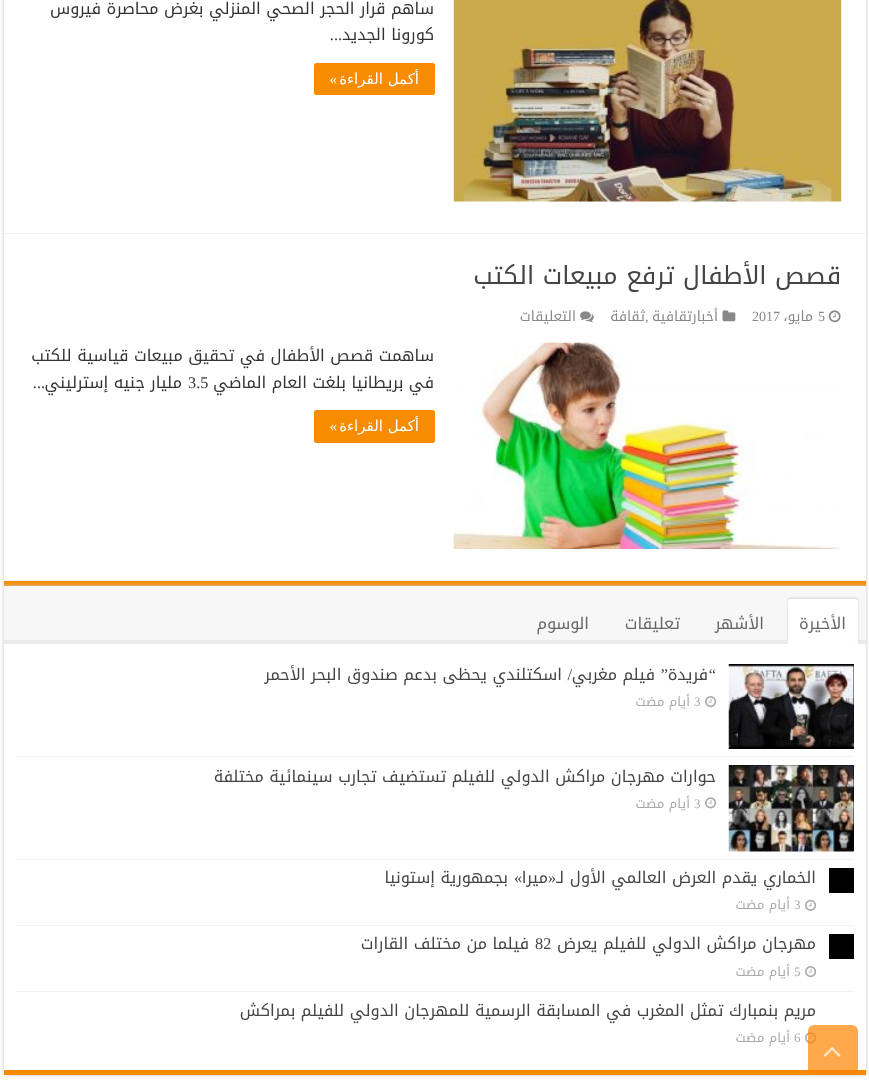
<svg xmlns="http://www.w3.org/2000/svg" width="869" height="1087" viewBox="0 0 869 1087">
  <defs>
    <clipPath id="clip1"><path d="M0 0H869V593H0ZM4-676H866V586H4Z" clip-rule="evenodd"/></clipPath>
  </defs>
  <rect width="100%" height="100%" fill="rgb(255,255,255)"/>
  <g clip-path="url(#clip1)">
    <rect x="4" y="-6" width="862" height="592" fill="rgb(202,202,202)" filter="blur(2px)"/>
  </g>
  <rect x="4" y="581" width="862" height="5" fill="rgb(248,140,0)"/>
  <rect x="4" y="233" width="862" height="1" fill="rgb(242,242,242)"/>
  <image x="453" y="0" width="389" height="202" href="pic1.png"/>
  <g font-family="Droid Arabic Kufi" font-size="16.25" direction="rtl" fill="rgb(51,51,51)">
    <text>
      <tspan x="434" y="14">ساهم قرار الحجر الصحي المنزلي بغرض محاصرة فيروس</tspan>
      <tspan x="434" y="40">كورونا الجديد</tspan>
    </text>
  </g>
  <text x="342" y="40" font-family="Liberation Serif" font-size="16.25" direction="rtl" fill="rgb(51,51,51)">...</text>
  <rect x="314" y="63" width="121" height="32" rx="2.5" fill="rgb(248,140,0)"/>
  <text x="419" y="84" font-family="DejaVu Sans" font-size="15" direction="rtl" fill="rgb(255,255,255)">أكمل القراءة</text>
  <text x="337" y="84" font-family="Liberation Serif" font-size="15" direction="rtl" fill="rgb(255,255,255)">»</text>
  <rect x="4" y="580" width="862" height="1" fill="rgb(242,242,242)"/>
  <text x="841" y="284" font-family="Droid Arabic Kufi" font-size="25" direction="rtl" fill="rgb(68,68,68)">قصص الأطفال ترفع مبيعات الكتب</text>
  <image x="828" y="310" width="13" height="13" href="pic2.png"/>
  <text x="818" y="321" font-family="Liberation Serif" font-size="14" fill="rgb(136,136,136)">5</text>
  <text x="813" y="321" font-family="Droid Arabic Kufi" font-size="14" direction="rtl" fill="rgb(136,136,136)">مايو،</text>
  <text x="752" y="321" font-family="Liberation Serif" font-size="14" fill="rgb(136,136,136)">2017</text>
  <image x="722" y="310" width="14" height="12" href="pic3.png"/>
  <text x="718" y="321" font-family="Droid Arabic Kufi" font-size="14" direction="rtl" fill="rgb(136,136,136)">أخبارتقافية</text>
  <text x="645" y="321" font-family="Liberation Serif" font-size="14" fill="rgb(136,136,136)">,</text>
  <text x="645" y="321" font-family="Droid Arabic Kufi" font-size="14" direction="rtl" fill="rgb(136,136,136)">ثقافة</text>
  <image x="580" y="311" width="14" height="12" href="pic4.png"/>
  <text x="576" y="321" font-family="Droid Arabic Kufi" font-size="14" direction="rtl" fill="rgb(136,136,136)">التعليقات</text>
  <image x="453" y="342" width="388" height="207" href="pic5.png"/>
  <g font-family="Droid Arabic Kufi" font-size="16.25" direction="rtl" fill="rgb(51,51,51)">
    <text>
      <tspan x="434" y="361">ساهمت قصص الأطفال في تحقيق مبيعات قياسية للكتب</tspan>
      <tspan x="434" y="388">في بريطانيا بلغت العام الماضي</tspan>
    </text>
  </g>
  <text x="188" y="388" font-family="Liberation Serif" font-size="16.25" fill="rgb(51,51,51)">3.5</text>
  <text x="182" y="388" font-family="Droid Arabic Kufi" font-size="16.25" direction="rtl" fill="rgb(51,51,51)">مليار جنيه إسترليني</text>
  <text x="45" y="388" font-family="Liberation Serif" font-size="16.25" direction="rtl" fill="rgb(51,51,51)">...</text>
  <rect x="314" y="410" width="121" height="33" rx="2.5" fill="rgb(248,140,0)"/>
  <text x="419" y="431" font-family="DejaVu Sans" font-size="15" direction="rtl" fill="rgb(255,255,255)">أكمل القراءة</text>
  <text x="337" y="431" font-family="Liberation Serif" font-size="15" direction="rtl" fill="rgb(255,255,255)">»</text>
  <rect x="4" y="586" width="862" height="489" fill="rgb(202,202,202)" filter="blur(2px)"/>
  <rect x="4" y="644" width="862" height="426" fill="rgb(255,255,255)"/>
  <rect x="4" y="1070" width="862" height="5" fill="rgb(248,140,0)"/>
  <rect x="4" y="586" width="862" height="54" fill="rgb(247,247,247)"/>
  <rect x="4" y="640" width="862" height="4" fill="rgb(234,234,234)"/>
  <rect x="788" y="598" width="70" height="45" rx="2.5" fill="rgb(212,212,212)" filter="blur(1px)"/>
  <path d="M790.5 599H855.5C857 599 858 600 858 601.5V644H788V601.5C788 600 789 599 790.5 599Z" fill="rgb(255,255,255)"/>
  <g font-family="Droid Arabic Kufi" font-size="16.25" direction="rtl" fill="rgb(102,102,102)">
    <text x="846" y="629">الأخيرة</text>
    <text x="764" y="629">الأشهر</text>
    <text x="680" y="629">تعليقات</text>
    <text x="589" y="629">الوسوم</text>
  </g>
  <rect x="16" y="756" width="838" height="1" fill="rgb(242,242,242)"/>
  <rect x="853" y="664" width="1" height="85" fill="rgb(0,0,0)"/>
  <image x="728" y="664" width="126" height="85" href="pic6.png"/>
  <text x="716" y="680" font-family="Liberation Serif" font-size="16.25" direction="rtl" fill="rgb(68,68,68)">“</text>
  <text x="708" y="680" font-family="Droid Arabic Kufi" font-size="16.25" direction="rtl" fill="rgb(68,68,68)">فريدة</text>
  <text x="668" y="680" font-family="Liberation Serif" font-size="16.25" direction="rtl" fill="rgb(68,68,68)">”</text>
  <text x="655" y="680" font-family="Droid Arabic Kufi" font-size="16.25" direction="rtl" fill="rgb(68,68,68)">فيلم مغربي</text>
  <text x="572" y="680" font-family="Liberation Serif" font-size="16.25" direction="rtl" fill="rgb(68,68,68)">/</text>
  <text x="562" y="680" font-family="Droid Arabic Kufi" font-size="16.25" direction="rtl" fill="rgb(68,68,68)">اسكتلندي يحظى بدعم صندوق البحر الأحمر</text>
  <image x="705" y="696" width="12" height="12" href="pic7.png"/>
  <text x="694" y="706" font-family="Liberation Serif" font-size="13" fill="rgb(170,170,170)">3</text>
  <text x="690" y="706" font-family="Droid Arabic Kufi" font-size="13" direction="rtl" fill="rgb(170,170,170)">أيام مضت</text>
  <rect x="16" y="859" width="838" height="1" fill="rgb(242,242,242)"/>
  <rect x="729" y="765" width="125" height="86" fill="rgb(0,0,0)"/>
  <image x="728" y="765" width="126" height="87" href="pic8.png"/>
  <text x="716" y="782" font-family="Droid Arabic Kufi" font-size="16.25" direction="rtl" fill="rgb(68,68,68)">حوارات مهرجان مراكش الدولي للفيلم تستضيف تجارب سينمائية مختلفة</text>
  <image x="705" y="797" width="12" height="12" href="pic9.png"/>
  <text x="694" y="808" font-family="Liberation Serif" font-size="13" fill="rgb(170,170,170)">3</text>
  <text x="690" y="808" font-family="Droid Arabic Kufi" font-size="13" direction="rtl" fill="rgb(170,170,170)">أيام مضت</text>
  <rect x="16" y="925" width="838" height="1" fill="rgb(242,242,242)"/>
  <rect x="829" y="868" width="25" height="25" fill="rgb(0,0,0)"/>
  <text x="556" y="883" font-family="Liberation Serif" font-size="16.25" direction="rtl" fill="rgb(68,68,68)">«</text>
  <g font-family="Droid Arabic Kufi" font-size="16.25" direction="rtl" fill="rgb(68,68,68)">
    <text x="816" y="883">الخماري يقدم العرض العالمي الأول لـ</text>
    <text x="548" y="883">ميرا</text>
  </g>
  <text x="522" y="883" font-family="Liberation Serif" font-size="16.25" direction="rtl" fill="rgb(68,68,68)">»</text>
  <text x="508" y="883" font-family="Droid Arabic Kufi" font-size="16.25" direction="rtl" fill="rgb(68,68,68)">بجمهورية إستونيا</text>
  <image x="805" y="899" width="12" height="12" href="pic10.png"/>
  <text x="794" y="909" font-family="Liberation Serif" font-size="13" fill="rgb(170,170,170)">3</text>
  <text x="790" y="909" font-family="Droid Arabic Kufi" font-size="13" direction="rtl" fill="rgb(170,170,170)">أيام مضت</text>
  <rect x="16" y="991" width="838" height="1" fill="rgb(242,242,242)"/>
  <rect x="829" y="934" width="25" height="25" fill="rgb(0,0,0)"/>
  <text x="816" y="949" font-family="Droid Arabic Kufi" font-size="16.25" direction="rtl" fill="rgb(68,68,68)">مهرجان مراكش الدولي للفيلم يعرض</text>
  <text x="535" y="949" font-family="Liberation Serif" font-size="16.25" fill="rgb(68,68,68)">82</text>
  <text x="529" y="949" font-family="Droid Arabic Kufi" font-size="16.25" direction="rtl" fill="rgb(68,68,68)">فيلما من مختلف القارات</text>
  <image x="805" y="966" width="12" height="12" href="pic7.png"/>
  <text x="794" y="976" font-family="Liberation Serif" font-size="13" fill="rgb(170,170,170)">5</text>
  <text x="790" y="976" font-family="Droid Arabic Kufi" font-size="13" direction="rtl" fill="rgb(170,170,170)">أيام مضت</text>
  <text x="816" y="1016" font-family="Droid Arabic Kufi" font-size="16.25" direction="rtl" fill="rgb(68,68,68)">مريم بنمبارك تمثل المغرب في المسابقة الرسمية للمهرجان الدولي للفيلم بمراكش</text>
  <image x="805" y="1032" width="12" height="12" href="pic9.png"/>
  <text x="794" y="1042" font-family="Liberation Serif" font-size="13" fill="rgb(170,170,170)">6</text>
  <text x="790" y="1042" font-family="Droid Arabic Kufi" font-size="13" direction="rtl" fill="rgb(170,170,170)">أيام مضت</text>
  <rect x="808" y="1025" width="50" height="50" rx="6" fill="rgba(255,133,0,0.7)"/>
  <image x="823" y="1047" width="18" height="10" href="pic11.png"/>
</svg>
